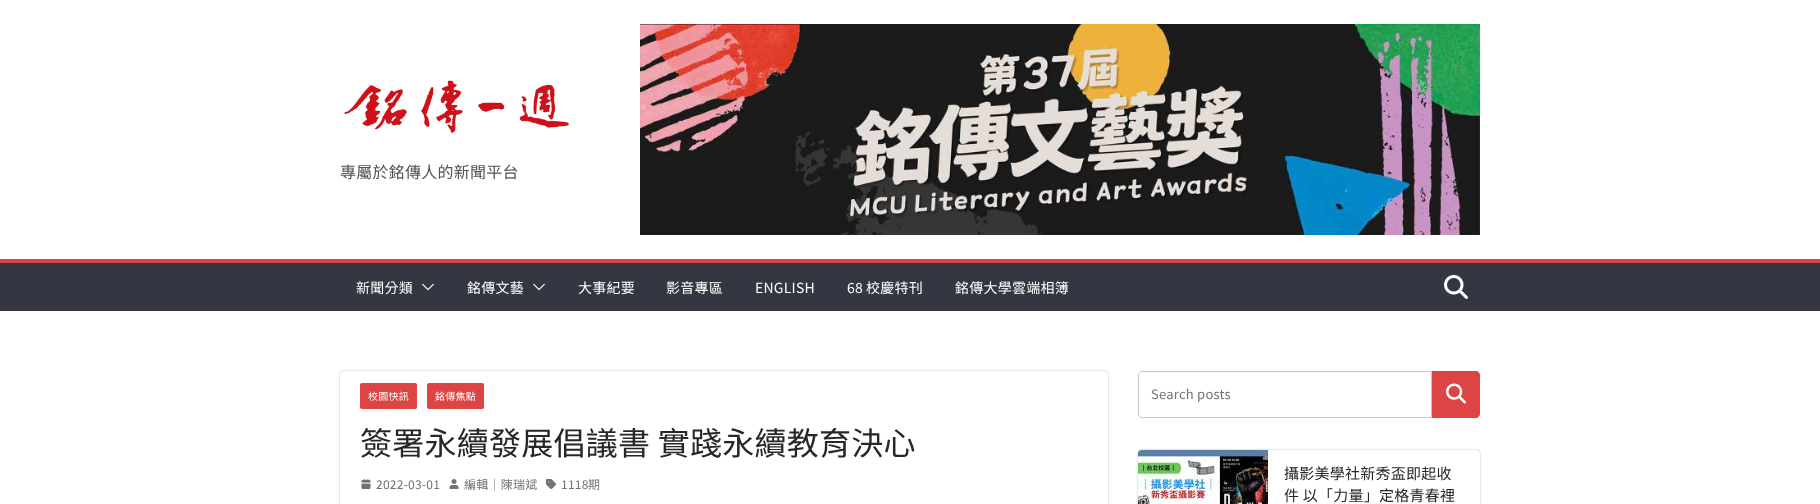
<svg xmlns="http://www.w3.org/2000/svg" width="1820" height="504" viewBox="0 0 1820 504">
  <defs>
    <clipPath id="clip1"><path d="M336 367H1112V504H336ZM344 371H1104C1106 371 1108 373 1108 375V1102C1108 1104 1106 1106 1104 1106H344C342 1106 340 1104 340 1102V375C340 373 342 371 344 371Z" clip-rule="evenodd"/></clipPath>
    <clipPath id="clip2"><path d="M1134 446H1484V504H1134ZM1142 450H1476C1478 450 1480 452 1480 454V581C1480 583 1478 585 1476 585H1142C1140 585 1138 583 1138 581V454C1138 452 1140 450 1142 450Z" clip-rule="evenodd"/></clipPath>
  </defs>
  <rect width="100%" height="100%" fill="rgb(255,255,255)"/>
  <image x="344" y="80" width="225" height="53" href="pic1.png"/>
  <text x="340" y="178" font-family="Noto Sans CJK TC" font-size="16" letter-spacing="0.25" fill="rgb(82,82,91)">專屬於銘傳人的新聞平台</text>
  <image x="640" y="24" width="840" height="211" href="pic2.png"/>
  <rect x="0" y="263" width="1820" height="48" fill="rgb(52,54,66)"/>
  <rect x="0" y="259" width="1820" height="4" fill="rgb(221,68,68)"/>
  <text x="356" y="293" font-family="Noto Sans TC" font-size="14" letter-spacing="0.25" fill="rgb(255,255,255)">新聞分類</text>
  <image x="422" y="283" width="12" height="8" href="pic3.png"/>
  <text x="467" y="293" font-family="Noto Sans TC" font-size="14" letter-spacing="0.25" fill="rgb(255,255,255)">銘傳文藝</text>
  <image x="533" y="283" width="12" height="8" href="pic3.png"/>
  <text x="578" y="293" font-family="Noto Sans CJK TC" font-size="14" letter-spacing="0.25" fill="rgb(255,255,255)">大事紀要</text>
  <text x="666" y="293" font-family="Noto Sans TC" font-size="14" letter-spacing="0.25" fill="rgb(255,255,255)">影音專區</text>
  <g font-family="'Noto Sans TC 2'" font-size="14" letter-spacing="0.25" fill="rgb(255,255,255)">
    <text x="755" y="293">ENGLISH</text>
    <text x="847" y="293">68</text>
  </g>
  <g font-family="Noto Sans CJK TC" font-size="14" letter-spacing="0.25" fill="rgb(255,255,255)">
    <text x="866" y="293">校慶特刊</text>
    <text x="955" y="293">銘傳大學雲端相簿</text>
  </g>
  <image x="1444" y="275" width="24" height="24" href="pic4.png"/>
  <g clip-path="url(#clip1)">
    <rect x="340" y="371" width="768" height="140" rx="4" fill="rgba(0,0,0,0.24)" filter="blur(1px)"/>
  </g>
  <rect x="360" y="383" width="57" height="26" rx="2" fill="rgb(221,68,68)"/>
  <text x="368" y="400" font-family="Noto Sans TC" font-size="10" letter-spacing="0.25" fill="rgb(255,255,255)">校園快訊</text>
  <rect x="427" y="383" width="57" height="26" rx="2" fill="rgb(221,68,68)"/>
  <text x="435" y="400" font-family="Noto Sans CJK TC" font-size="10" letter-spacing="0.25" fill="rgb(255,255,255)">銘傳焦點</text>
  <text x="360" y="455" font-family="Noto Sans CJK TC" font-size="32" letter-spacing="0.25" fill="rgb(39,39,42)">簽署永續發展倡議書 實踐永續教育決心</text>
  <image x="361" y="479" width="10" height="10" href="pic5.png"/>
  <text x="376" y="489" font-family="'Noto Sans TC 2'" font-size="12" letter-spacing="0.25" fill="rgb(113,113,122)">2022-03-01</text>
  <image x="449" y="479" width="10" height="10" href="pic6.png"/>
  <text x="464" y="489" font-family="Noto Sans CJK TC" font-size="12" letter-spacing="0.25" fill="rgb(113,113,122)">編輯｜陳瑞斌</text>
  <image x="546" y="479" width="10" height="10" href="pic7.png"/>
  <text x="561" y="489" font-family="'Noto Sans TC 2'" font-size="12" letter-spacing="0.25" fill="rgb(113,113,122)">1118</text>
  <text x="588" y="489" font-family="Noto Sans TC" font-size="12" letter-spacing="0.25" fill="rgb(113,113,122)">期</text>
  <path d="M1142 371.5H1431.5V417.5H1142C1140 417.5 1138.5 416 1138.5 414V375C1138.5 373 1140 371.5 1142 371.5Z" fill="none" stroke="rgb(199,199,199)"/>
  <text x="1151" y="399" font-family="'Noto Sans TC 2'" font-size="13" letter-spacing="0.25" fill="rgb(113,113,122)">Search posts</text>
  <path d="M1432 371H1476C1478 371 1480 373 1480 375V414C1480 416 1478 418 1476 418H1432Z" fill="rgb(221,68,68)"/>
  <image x="1446" y="383" width="20" height="21" href="pic8.png"/>
  <g clip-path="url(#clip2)">
    <rect x="1138" y="450" width="342" height="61" rx="4" fill="rgba(0,0,0,0.24)" filter="blur(1px)"/>
  </g>
  <image x="1138" y="450" width="130" height="54" href="pic9.png"/>
  <g font-family="Noto Sans CJK TC" font-size="15" letter-spacing="0.25" fill="rgb(39,39,42)">
    <text>
      <tspan x="1284" y="479">攝影美學社新秀盃即起收</tspan>
      <tspan x="1284" y="501">件 以「力量」定格青春裡</tspan>
    </text>
  </g>
</svg>
